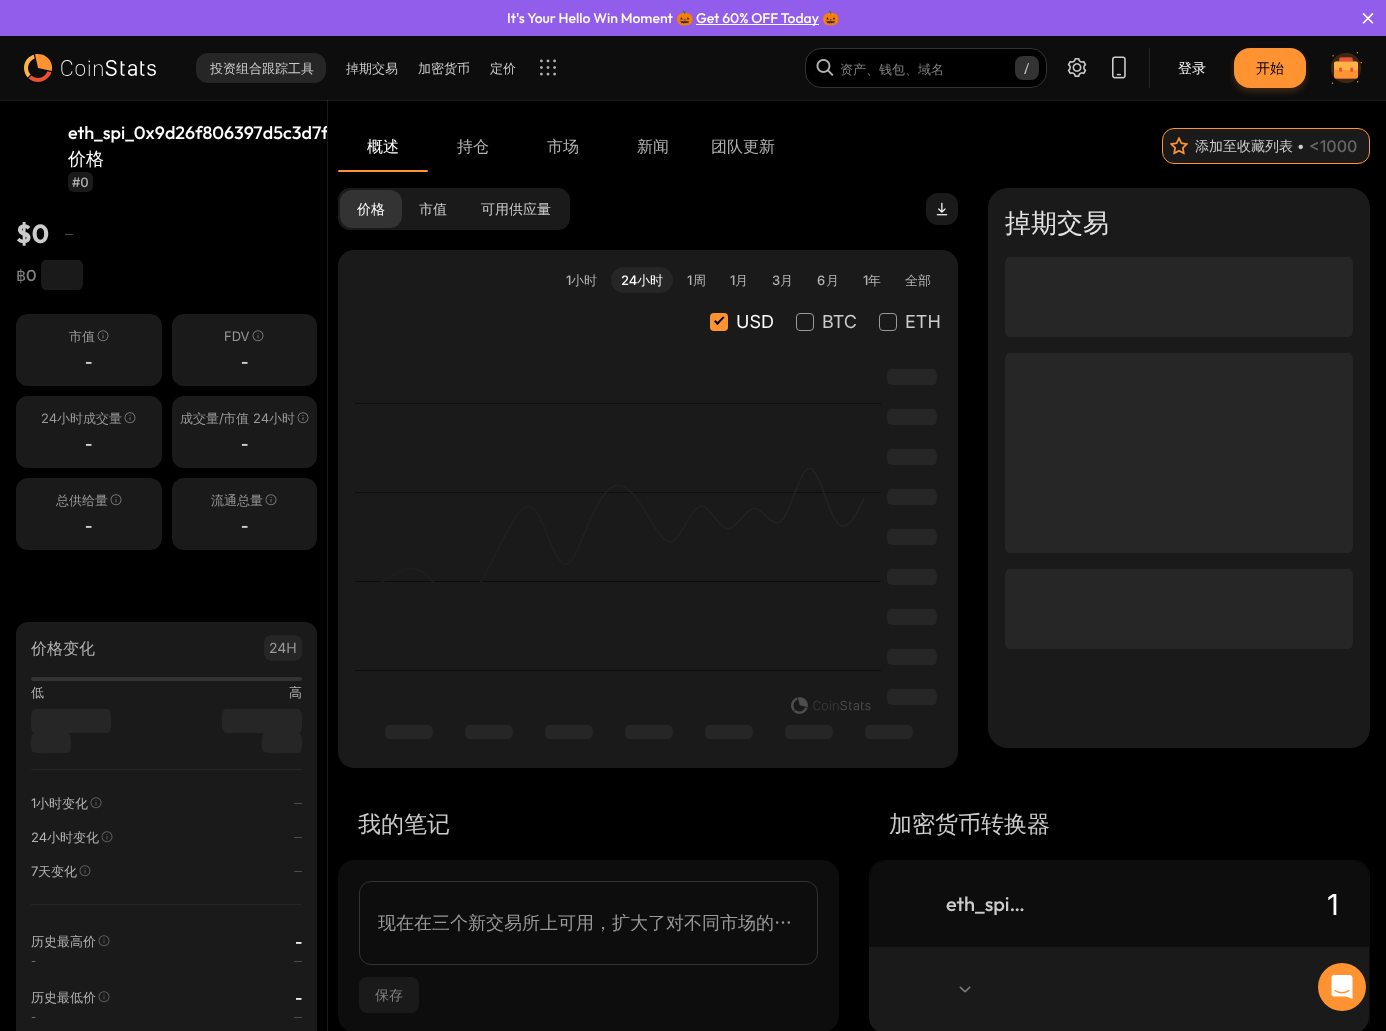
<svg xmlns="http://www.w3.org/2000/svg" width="1386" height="1031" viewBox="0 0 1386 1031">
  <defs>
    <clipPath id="clip1"><rect x="68" y="120" width="259" height="52"/></clipPath>
  </defs>
  <rect width="100%" height="100%" fill="rgb(0,0,0)"/>
  <rect x="0" y="100" width="1386" height="1" fill="rgb(26,26,26)"/>
  <rect x="0" y="0" width="1386" height="36" fill="rgb(147,93,235)"/>
  <text x="507" y="23" font-family="Outfit" font-size="14" font-weight="500" fill="rgb(255,255,255)">It's Your Hello Win Moment</text>
  <text x="676" y="23" font-family="Noto Color Emoji" font-size="14" fill="rgb(255,255,255)">🎃</text>
  <rect x="696" y="24" width="123" height="1" fill="rgb(255,255,255)"/>
  <text x="696" y="23" font-family="Outfit" font-size="14" font-weight="500" fill="rgb(255,255,255)">Get 60% OFF Today</text>
  <text x="822" y="23" font-family="Noto Color Emoji" font-size="14" fill="rgb(255,255,255)">🎃</text>
  <image x="1362" y="13" width="12" height="11" href="pic1.png"/>
  <rect x="0" y="36" width="1386" height="64" fill="rgb(13,13,13)"/>
  <image x="24" y="54" width="132" height="28" href="pic2.png"/>
  <rect x="196" y="53" width="130" height="30" rx="12" fill="rgb(38,38,38)"/>
  <g font-family="WenQuanYi Zen Hei" font-size="13" font-weight="500" fill="rgb(204,204,204)">
    <text x="210" y="73">投资组合跟踪工具</text>
    <text x="346" y="73">掉期交易</text>
    <text x="418" y="73">加密货币</text>
    <text x="490" y="73">定价</text>
  </g>
  <image x="540" y="59" width="16" height="17" href="pic3.png"/>
  <rect x="805.5" y="48.5" width="241" height="39" rx="15.5" fill="rgb(0,0,0)" stroke="rgb(51,51,51)"/>
  <image x="816" y="59" width="18" height="17" href="pic4.png"/>
  <text x="840" y="74" font-family="WenQuanYi Zen Hei" font-size="13" font-weight="500" fill="rgb(128,128,128)">资产、钱包、域名</text>
  <rect x="1015" y="56" width="24" height="24" rx="8" fill="rgb(51,51,51)"/>
  <path d="M1029 63L1025.5 74H1024L1028 63Z" fill="rgb(191,191,191)"/>
  <image x="1067" y="58" width="20" height="19" href="pic5.png"/>
  <image x="1112" y="56" width="14" height="23" href="pic6.png"/>
  <rect x="1149" y="48" width="1" height="40" fill="rgb(38,38,38)"/>
  <text x="1178" y="73" font-family="WenQuanYi Zen Hei" font-size="14" font-weight="500" fill="rgb(255,255,255)">登录</text>
  <rect x="1234" y="52" width="72" height="40" rx="16" fill="rgba(255,147,50,0.2)" filter="blur(3px)"/>
  <rect x="1234" y="48" width="72" height="40" rx="16" fill="rgb(255,147,50)"/>
  <text x="1256" y="73" font-family="WenQuanYi Zen Hei" font-size="14" font-weight="500" fill="rgb(0,0,0)">开始</text>
  <image x="1331" y="52" width="31" height="32" href="pic7.png"/>
  <rect x="327" y="100" width="1" height="931" fill="rgb(26,26,26)"/>
  <rect x="327" y="100" width="1" height="1" fill="rgb(49,49,49)"/>
  <g clip-path="url(#clip1)">
    <text x="68" y="139" font-family="Outfit" font-size="18" font-weight="500" fill="rgb(255,255,255)">eth_spi_0x9d26f806397d5c3d7f</text>
  </g>
  <text x="68" y="165" font-family="WenQuanYi Zen Hei" font-size="18" font-weight="500" fill="rgb(255,255,255)">价格</text>
  <rect x="68" y="172" width="25" height="20" rx="6" fill="rgb(26,26,26)"/>
  <text x="72" y="187" font-family="Inter" font-size="13" font-weight="500" fill="rgb(179,179,179)">#0</text>
  <text x="16" y="243" font-family="Outfit" font-size="26" font-weight="bold" fill="rgb(204,204,204)">$0</text>
  <rect x="65" y="234" width="8" height="1" fill="rgb(77,77,77)"/>
  <text x="16" y="281" font-family="DejaVu Sans" font-size="16" fill="rgb(128,128,128)">฿</text>
  <text x="26" y="281" font-family="Outfit" font-size="16" font-weight="500" fill="rgb(128,128,128)">0</text>
  <path d="M45 260H79C81 260 83 263 83 267V283C83 287 81 290 79 290H45C43 290 41 287 41 283V267C41 263 43 260 45 260Z" fill="rgb(26,26,26)"/>
  <rect x="16" y="314" width="146" height="72" rx="12" fill="rgb(26,26,26)"/>
  <text x="69" y="341" font-family="WenQuanYi Zen Hei" font-size="13" font-weight="500" fill="rgb(153,153,153)">市值</text>
  <image x="97" y="330" width="12" height="12" href="pic8.png"/>
  <text x="85" y="367" font-family="Outfit" font-size="16" font-weight="600" fill="rgb(204,204,204)">-</text>
  <rect x="172" y="314" width="145" height="72" rx="12" fill="rgb(26,26,26)"/>
  <text x="224" y="341" font-family="Inter" font-size="13" fill="rgb(153,153,153)">FDV</text>
  <image x="252" y="330" width="12" height="12" href="pic8.png"/>
  <text x="241" y="367" font-family="Outfit" font-size="16" font-weight="600" fill="rgb(204,204,204)">-</text>
  <rect x="16" y="396" width="146" height="72" rx="12" fill="rgb(26,26,26)"/>
  <text x="41" y="423" font-family="Inter" font-size="13" fill="rgb(153,153,153)">24</text>
  <text x="57" y="423" font-family="WenQuanYi Zen Hei" font-size="13" font-weight="500" fill="rgb(153,153,153)">小时成交量</text>
  <image x="124" y="412" width="12" height="12" href="pic8.png"/>
  <text x="85" y="449" font-family="Outfit" font-size="16" font-weight="600" fill="rgb(204,204,204)">-</text>
  <rect x="172" y="396" width="145" height="72" rx="12" fill="rgb(26,26,26)"/>
  <text x="180" y="423" font-family="WenQuanYi Zen Hei" font-size="13" font-weight="500" fill="rgb(153,153,153)">成交量</text>
  <text x="219" y="423" font-family="Inter" font-size="13" fill="rgb(153,153,153)">/</text>
  <text x="223" y="423" font-family="WenQuanYi Zen Hei" font-size="13" font-weight="500" fill="rgb(153,153,153)">市值</text>
  <text x="253" y="423" font-family="Inter" font-size="13" fill="rgb(153,153,153)">24</text>
  <text x="269" y="423" font-family="WenQuanYi Zen Hei" font-size="13" font-weight="500" fill="rgb(153,153,153)">小时</text>
  <image x="297" y="412" width="12" height="12" href="pic8.png"/>
  <text x="241" y="449" font-family="Outfit" font-size="16" font-weight="600" fill="rgb(204,204,204)">-</text>
  <rect x="16" y="478" width="146" height="72" rx="12" fill="rgb(26,26,26)"/>
  <text x="56" y="505" font-family="WenQuanYi Zen Hei" font-size="13" font-weight="500" fill="rgb(153,153,153)">总供给量</text>
  <image x="110" y="494" width="12" height="12" href="pic8.png"/>
  <text x="85" y="531" font-family="Outfit" font-size="16" font-weight="600" fill="rgb(204,204,204)">-</text>
  <rect x="172" y="478" width="145" height="72" rx="12" fill="rgb(26,26,26)"/>
  <text x="211" y="505" font-family="WenQuanYi Zen Hei" font-size="13" font-weight="500" fill="rgb(153,153,153)">流通总量</text>
  <image x="265" y="494" width="12" height="12" href="pic8.png"/>
  <text x="241" y="531" font-family="Outfit" font-size="16" font-weight="600" fill="rgb(204,204,204)">-</text>
  <path d="M28 622H305C311.5 622 317 627.5 317 634V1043H16V634C16 627.5 21.5 622 28 622Z" fill="rgb(26,26,26)"/>
  <rect x="31" y="769" width="271" height="1" fill="rgb(38,38,38)"/>
  <text x="31" y="654" font-family="WenQuanYi Zen Hei" font-size="16" font-weight="500" fill="rgb(179,179,179)">价格变化</text>
  <rect x="264" y="635" width="38" height="26" rx="8" fill="rgb(38,38,38)"/>
  <text x="269" y="653" font-family="Inter" font-size="14" fill="rgb(153,153,153)">24H</text>
  <rect x="31" y="677" width="271" height="4" rx="2" fill="rgb(51,51,51)"/>
  <g font-family="WenQuanYi Zen Hei" font-size="13" font-weight="500" fill="rgb(179,179,179)">
    <text x="31" y="697">低</text>
    <text x="289" y="697">高</text>
  </g>
  <path d="M35 709H107C109 709 111 712 111 716V726C111 730 109 733 107 733H35C33 733 31 730 31 726V716C31 712 33 709 35 709Z" fill="rgb(38,38,38)"/>
  <path d="M226 709H298C300 709 302 712 302 716V726C302 730 300 733 298 733H226C224 733 222 730 222 726V716C222 712 224 709 226 709Z" fill="rgb(38,38,38)"/>
  <path d="M35 733H68C71 734 71 740 71 743C71 752 71 753 62 753H51C48 753 35 754 33 752C30 750 29 733 35 733Z" fill="rgb(38,38,38)"/>
  <path d="M266 733H299C302 734 302 740 302 743C302 752 302 753 293 753H282C279 753 266 754 264 752C261 750 260 733 266 733Z" fill="rgb(38,38,38)"/>
  <rect x="31" y="904" width="271" height="1" fill="rgb(38,38,38)"/>
  <text x="31" y="808" font-family="Inter" font-size="13" fill="rgb(179,179,179)">1</text>
  <text x="36" y="808" font-family="WenQuanYi Zen Hei" font-size="13" font-weight="500" fill="rgb(179,179,179)">小时变化</text>
  <image x="90" y="797" width="12" height="12" href="pic9.png"/>
  <rect x="294" y="803" width="8" height="1" rx="0.5" fill="rgb(77,77,77)"/>
  <text x="31" y="842" font-family="Inter" font-size="13" fill="rgb(179,179,179)">24</text>
  <text x="47" y="842" font-family="WenQuanYi Zen Hei" font-size="13" font-weight="500" fill="rgb(179,179,179)">小时变化</text>
  <image x="101" y="831" width="12" height="12" href="pic9.png"/>
  <rect x="294" y="837" width="8" height="1" rx="0.5" fill="rgb(77,77,77)"/>
  <text x="31" y="876" font-family="Inter" font-size="13" fill="rgb(179,179,179)">7</text>
  <text x="38" y="876" font-family="WenQuanYi Zen Hei" font-size="13" font-weight="500" fill="rgb(179,179,179)">天变化</text>
  <image x="79" y="865" width="12" height="12" href="pic9.png"/>
  <rect x="294" y="871" width="8" height="1" rx="0.5" fill="rgb(77,77,77)"/>
  <text x="31" y="946" font-family="WenQuanYi Zen Hei" font-size="13" font-weight="500" fill="rgb(179,179,179)">历史最高价</text>
  <image x="98" y="935" width="12" height="12" href="pic9.png"/>
  <text x="295" y="947" font-family="Outfit" font-size="16" font-weight="500" fill="rgb(255,255,255)">-</text>
  <text x="31" y="965" font-family="Inter" font-size="11" fill="rgb(128,128,128)">-</text>
  <rect x="294" y="961" width="8" height="1" rx="0.5" fill="rgb(77,77,77)"/>
  <text x="31" y="1002" font-family="WenQuanYi Zen Hei" font-size="13" font-weight="500" fill="rgb(179,179,179)">历史最低价</text>
  <image x="98" y="991" width="12" height="12" href="pic9.png"/>
  <text x="295" y="1003" font-family="Outfit" font-size="16" font-weight="500" fill="rgb(255,255,255)">-</text>
  <text x="31" y="1021" font-family="Inter" font-size="11" fill="rgb(128,128,128)">-</text>
  <rect x="294" y="1017" width="8" height="1" rx="0.5" fill="rgb(77,77,77)"/>
  <text x="367" y="152" font-family="WenQuanYi Zen Hei" font-size="16" font-weight="500" fill="rgb(255,255,255)">概述</text>
  <g font-family="WenQuanYi Zen Hei" font-size="16" font-weight="500" fill="rgb(179,179,179)">
    <text x="457" y="152">持仓</text>
    <text x="547" y="152">市场</text>
    <text x="637" y="152">新闻</text>
    <text x="711" y="152">团队更新</text>
  </g>
  <rect x="338" y="170" width="90" height="2" rx="1" fill="rgb(255,147,50)"/>
  <rect x="1162.5" y="128.5" width="207" height="35" rx="11.5" fill="rgb(26,26,26)" stroke="rgb(255,147,50)"/>
  <image x="1170" y="137" width="18" height="18" href="pic10.png"/>
  <text x="1195" y="151" font-family="WenQuanYi Zen Hei" font-size="14" font-weight="500" fill="rgb(204,204,204)">添加至收藏列表</text>
  <text x="1297" y="151" font-family="Inter" font-size="14" font-weight="500" fill="rgb(204,204,204)">•</text>
  <text x="1309" y="152" font-family="Inter" font-size="16" font-weight="500" fill="rgb(102,102,102)">&lt;1000</text>
  <rect x="338" y="188" width="232" height="42" rx="12" fill="rgb(26,26,26)"/>
  <rect x="340" y="190" width="62" height="38" rx="12" fill="rgb(51,51,51)"/>
  <text x="357" y="214" font-family="WenQuanYi Zen Hei" font-size="14" font-weight="500" fill="rgb(255,255,255)">价格</text>
  <g font-family="WenQuanYi Zen Hei" font-size="14" font-weight="500" fill="rgb(204,204,204)">
    <text x="419" y="214">市值</text>
    <text x="481" y="214">可用供应量</text>
  </g>
  <rect x="926" y="193" width="32" height="32" rx="12" fill="rgb(26,26,26)"/>
  <image x="936" y="202" width="12" height="14" href="pic11.png"/>
  <rect x="338" y="250" width="620" height="518" rx="16" fill="rgb(26,26,26)"/>
  <text x="566" y="285" font-family="Inter" font-size="13" font-weight="500" fill="rgb(179,179,179)">1</text>
  <text x="571" y="285" font-family="WenQuanYi Zen Hei" font-size="13" font-weight="500" fill="rgb(179,179,179)">小时</text>
  <rect x="611" y="267" width="62" height="26" rx="13" fill="rgb(38,38,38)"/>
  <text x="621" y="285" font-family="Inter" font-size="13" font-weight="500" fill="rgb(255,255,255)">24</text>
  <text x="637" y="285" font-family="WenQuanYi Zen Hei" font-size="13" font-weight="500" fill="rgb(255,255,255)">小时</text>
  <text x="687" y="285" font-family="Inter" font-size="13" font-weight="500" fill="rgb(179,179,179)">1</text>
  <text x="693" y="285" font-family="WenQuanYi Zen Hei" font-size="13" font-weight="500" fill="rgb(179,179,179)">周</text>
  <text x="730" y="285" font-family="Inter" font-size="13" font-weight="500" fill="rgb(179,179,179)">1</text>
  <text x="735" y="285" font-family="WenQuanYi Zen Hei" font-size="13" font-weight="500" fill="rgb(179,179,179)">月</text>
  <text x="772" y="285" font-family="Inter" font-size="13" font-weight="500" fill="rgb(179,179,179)">3</text>
  <text x="780" y="285" font-family="WenQuanYi Zen Hei" font-size="13" font-weight="500" fill="rgb(179,179,179)">月</text>
  <text x="817" y="285" font-family="Inter" font-size="13" font-weight="500" fill="rgb(179,179,179)">6</text>
  <text x="826" y="285" font-family="WenQuanYi Zen Hei" font-size="13" font-weight="500" fill="rgb(179,179,179)">月</text>
  <text x="863" y="285" font-family="Inter" font-size="13" font-weight="500" fill="rgb(179,179,179)">1</text>
  <g font-family="WenQuanYi Zen Hei" font-size="13" font-weight="500" fill="rgb(179,179,179)">
    <text x="868" y="285">年</text>
    <text x="905" y="285">全部</text>
  </g>
  <rect x="710" y="313" width="18" height="18" rx="4" fill="rgb(255,147,50)"/>
  <text x="736" y="328" font-family="Inter" font-size="18" fill="rgb(255,255,255)">USD</text>
  <path d="M716 323.5L723 316.5L724.5 317.5L717.5 325Z" fill="rgb(0,0,0)"/>
  <path d="M714 321.5L715.5 320L719 323.5L717.5 325Z" fill="rgb(0,0,0)"/>
  <rect x="796.5" y="313.5" width="17" height="17" rx="3.5" fill="none" stroke="rgb(153,153,153)"/>
  <text x="822" y="328" font-family="Inter" font-size="18" fill="rgb(204,204,204)">BTC</text>
  <rect x="879.5" y="313.5" width="17" height="17" rx="3.5" fill="none" stroke="rgb(153,153,153)"/>
  <text x="905" y="328" font-family="Inter" font-size="18" fill="rgb(204,204,204)">ETH</text>
  <rect x="355" y="403" width="526" height="1" fill="rgb(13,13,13)"/>
  <rect x="355" y="492" width="526" height="1" fill="rgb(13,13,13)"/>
  <rect x="355" y="581" width="526" height="1" fill="rgb(13,13,13)"/>
  <rect x="355" y="670" width="526" height="1" fill="rgb(13,13,13)"/>
  <image x="380" y="468" width="485" height="114" href="pic12.png"/>
  <image x="791" y="697" width="80" height="17" href="pic13.png"/>
  <path d="M891 369H934C938 371 938 383 934 385H898C891 385 887 386 887 378C887 376 887 369 891 369ZM891 409H934C938 411 938 423 934 425H898C891 425 887 426 887 418C887 416 887 409 891 409Z" fill="rgb(38,38,38)"/>
  <path d="M891 449H934C938 451 938 463 934 465H898C891 465 887 466 887 458C887 456 887 449 891 449ZM891 489H934C938 491 938 503 934 505H898C891 505 887 506 887 498C887 496 887 489 891 489Z" fill="rgb(38,38,38)"/>
  <path d="M891 529H934C938 531 938 543 934 545H898C891 545 887 546 887 538C887 536 887 529 891 529ZM891 569H934C938 571 938 583 934 585H898C891 585 887 586 887 578C887 576 887 569 891 569Z" fill="rgb(38,38,38)"/>
  <path d="M891 609H934C938 611 938 623 934 625H898C891 625 887 626 887 618C887 616 887 609 891 609ZM891 649H934C938 651 938 663 934 665H898C891 665 887 666 887 658C887 656 887 649 891 649Z" fill="rgb(38,38,38)"/>
  <path d="M891 689H934C938 691 938 703 934 705H898C891 705 887 706 887 698C887 696 887 689 891 689Z" fill="rgb(38,38,38)"/>
  <path d="M389 725H429C431 725 433 728 433 732C433 736 431 739 429 739H389C387 739 385 736 385 732C385 728 387 725 389 725Z" fill="rgb(38,38,38)"/>
  <path d="M469 725H509C511 725 513 728 513 732C513 736 511 739 509 739H469C467 739 465 736 465 732C465 728 467 725 469 725Z" fill="rgb(38,38,38)"/>
  <path d="M549 725H589C591 725 593 728 593 732C593 736 591 739 589 739H549C547 739 545 736 545 732C545 728 547 725 549 725Z" fill="rgb(38,38,38)"/>
  <path d="M629 725H669C671 725 673 728 673 732C673 736 671 739 669 739H629C627 739 625 736 625 732C625 728 627 725 629 725Z" fill="rgb(38,38,38)"/>
  <path d="M709 725H749C751 725 753 728 753 732C753 736 751 739 749 739H709C707 739 705 736 705 732C705 728 707 725 709 725Z" fill="rgb(38,38,38)"/>
  <path d="M789 725H829C831 725 833 728 833 732C833 736 831 739 829 739H789C787 739 785 736 785 732C785 728 787 725 789 725Z" fill="rgb(38,38,38)"/>
  <path d="M869 725H909C911 725 913 728 913 732C913 736 911 739 909 739H869C867 739 865 736 865 732C865 728 867 725 869 725Z" fill="rgb(38,38,38)"/>
  <rect x="988" y="188" width="382" height="560" rx="20" fill="rgb(26,26,26)"/>
  <text x="1005" y="232" font-family="WenQuanYi Zen Hei" font-size="26" font-weight="500" fill="rgb(229,229,229)">掉期交易</text>
  <path d="M1009 257H1349C1351 257 1353 260 1353 264V330C1353 334 1351 337 1349 337H1009C1007 337 1005 334 1005 330V264C1005 260 1007 257 1009 257Z" fill="rgb(38,38,38)"/>
  <path d="M1009 353H1349C1351 353 1353 356 1353 360V546C1353 550 1351 553 1349 553H1009C1007 553 1005 550 1005 546V360C1005 356 1007 353 1009 353Z" fill="rgb(38,38,38)"/>
  <path d="M1009 569H1349C1351 569 1353 572 1353 576V642C1353 646 1351 649 1349 649H1009C1007 649 1005 646 1005 642V576C1005 572 1007 569 1009 569Z" fill="rgb(38,38,38)"/>
  <text x="358" y="832" font-family="WenQuanYi Zen Hei" font-size="23" font-weight="500" fill="rgb(204,204,204)">我的笔记</text>
  <rect x="338.5" y="860.5" width="500" height="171" rx="15.5" fill="rgb(13,13,13)" stroke="rgb(13,13,13)"/>
  <rect x="359.5" y="881.5" width="458" height="83" rx="11.5" fill="none" stroke="rgb(51,51,51)"/>
  <text x="378" y="929" font-family="WenQuanYi Zen Hei" font-size="18" font-weight="500" fill="rgb(153,153,153)">现在在三个新交易所上可用，扩大了对不同市场的…</text>
  <rect x="359" y="977" width="60" height="36" rx="8" fill="rgb(26,26,26)"/>
  <text x="375" y="1000" font-family="WenQuanYi Zen Hei" font-size="14" font-weight="500" fill="rgb(128,128,128)">保存</text>
  <text x="889" y="832" font-family="WenQuanYi Zen Hei" font-size="23" font-weight="500" fill="rgb(204,204,204)">加密货币转换器</text>
  <path d="M885 860H1354C1363 860 1370 867 1370 876V947H869V876C869 867 876 860 885 860ZM885 861H1354C1362 861 1369 868 1369 876V947H870V876C870 868 877 861 885 861Z" fill="rgb(13,13,13)" fill-rule="evenodd"/>
  <path d="M886 861H1353C1362 861 1369 868 1369 877V947H870V877C870 868 877 861 886 861Z" fill="rgb(13,13,13)"/>
  <text x="946" y="911" font-family="Outfit" font-size="20" font-weight="500" fill="rgb(204,204,204)">eth_spi…</text>
  <text x="1327" y="915" font-family="Inter" font-size="29" fill="rgb(255,255,255)">1</text>
  <rect x="1369" y="947" width="1" height="78" fill="rgb(13,13,13)"/>
  <path d="M869 947H1369V1017C1369 1026 1362 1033 1353 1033H885C876 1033 869 1026 869 1017Z" fill="rgb(26,26,26)"/>
  <image x="959" y="986" width="12" height="7" href="pic14.png"/>
  <circle cx="1342" cy="987" r="24" fill="rgb(255,147,50)"/>
  <image x="1331" y="975" width="22" height="24" href="pic15.png"/>
</svg>
